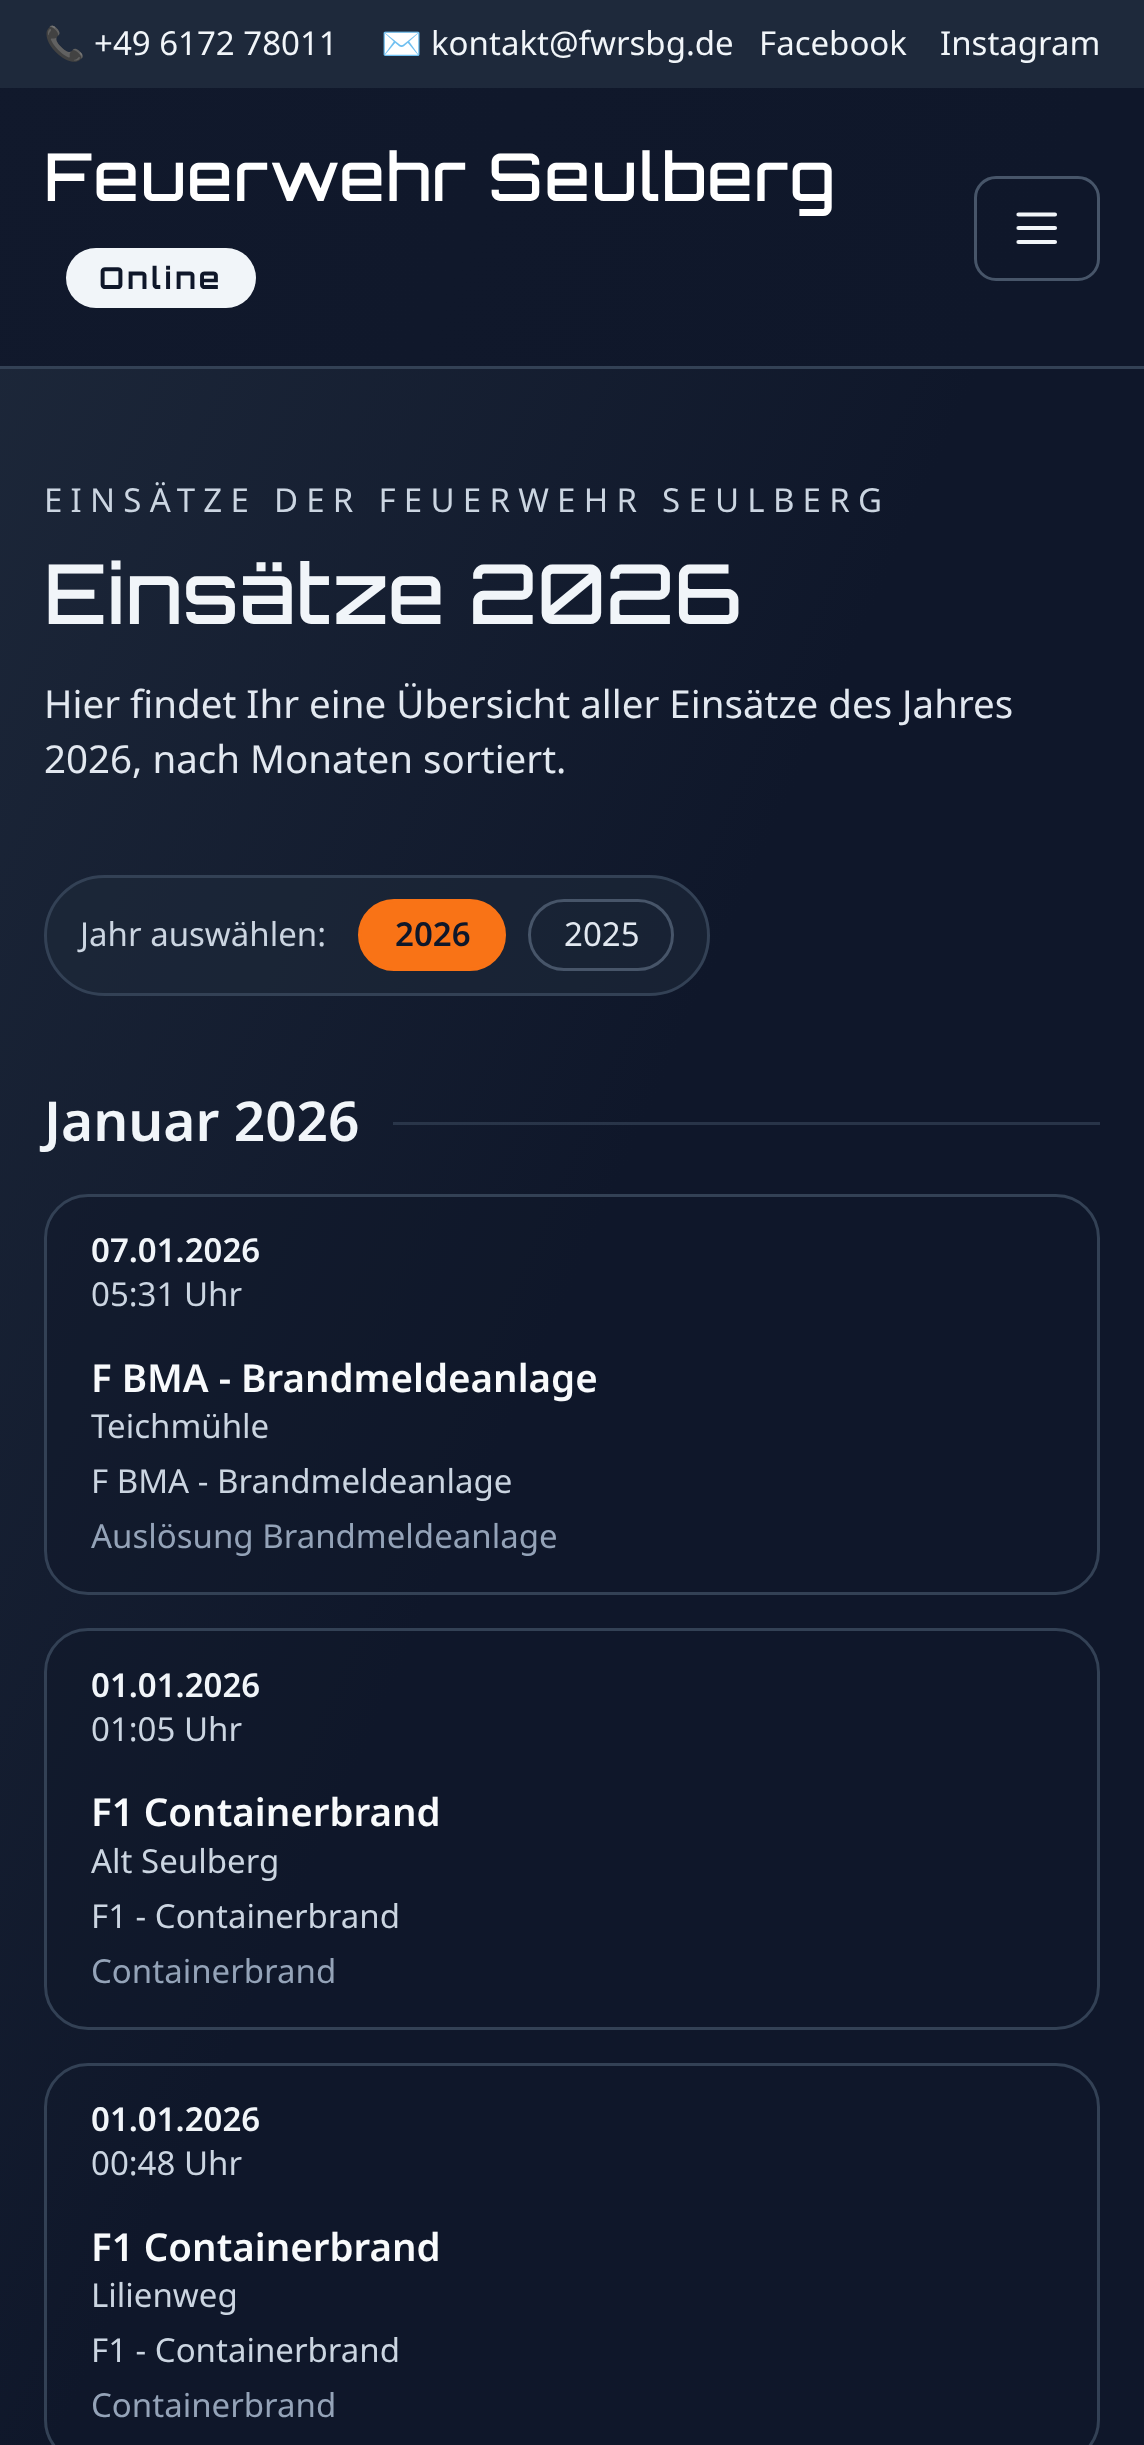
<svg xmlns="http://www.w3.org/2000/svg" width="1144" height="2445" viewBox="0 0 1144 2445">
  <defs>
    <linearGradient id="g1" gradientUnits="userSpaceOnUse" x1="-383" y1="862" x2="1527" y2="1712"><stop offset="0" stop-color="rgb(30,41,59)"/><stop offset="0.5" stop-color="rgb(15,23,42)"/><stop offset="1" stop-color="rgb(15,23,42)"/></linearGradient>
    <linearGradient id="g2" gradientUnits="userSpaceOnUse" x1="-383" y1="862" x2="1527" y2="1712"><stop offset="0" stop-color="rgb(17,25,44)"/><stop offset="0.5" stop-color="rgb(15,23,42)"/><stop offset="1" stop-color="rgb(15,23,42)"/></linearGradient>
    <linearGradient id="g3" gradientUnits="userSpaceOnUse" x1="-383" y1="862" x2="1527" y2="1712"><stop offset="0" stop-color="rgb(45,58,77)"/><stop offset="0.5" stop-color="rgb(40,52,72)"/><stop offset="1" stop-color="rgb(40,52,72)"/></linearGradient>
  </defs>
  <rect width="100%" height="100%" fill="rgb(255,255,255)"/>
  <rect x="0" y="369" width="1144" height="2076" fill="url(#g1)"/>
  <rect x="0" y="88" width="1144" height="278" fill="url(#g2)"/>
  <rect x="393" y="1122" width="707" height="3" fill="url(#g3)"/>
  <rect x="0" y="0" width="1144" height="88" fill="rgb(30,41,59)"/>
  <text x="44" y="55" font-family="Noto Color Emoji" font-size="33" fill="rgb(241,245,249)">📞</text>
  <text x="94" y="55" font-family="Noto Sans" font-size="33" fill="rgb(241,245,249)">+49 6172 78011</text>
  <text x="381" y="55" font-family="Noto Color Emoji" font-size="33" fill="rgb(241,245,249)">✉️</text>
  <g font-family="Noto Sans" font-size="33" fill="rgb(241,245,249)">
    <text x="431" y="55">kontakt@fwrsbg.de</text>
    <text x="759" y="55">Facebook</text>
    <text x="940" y="55">Instagram</text>
  </g>
  <rect x="0" y="366" width="1144" height="3" fill="rgb(51,65,85)"/>
  <text x="44" y="201" font-family="Orbitron" font-size="66" font-weight="500" letter-spacing="1.6" fill="rgb(255,255,255)">Feuerwehr Seulberg</text>
  <rect x="66" y="248" width="190" height="60" rx="30" fill="rgb(241,245,249)"/>
  <text x="99" y="289" font-family="Orbitron" font-size="30.25" font-weight="bold" letter-spacing="3" fill="rgb(15,23,42)">Online</text>
  <rect x="975.5" y="177.5" width="123" height="102" rx="20.5" fill="none" stroke="rgb(71,85,105)" stroke-width="3"/>
  <path d="M1018.5 214.5H1055M1018.5 228H1055M1018.5 242H1055" fill="none" stroke="rgb(241,245,249)" stroke-width="4.1" stroke-linecap="round" stroke-linejoin="round"/>
  <text x="44" y="512" font-family="Noto Sans" font-size="33" letter-spacing="8.25" fill="rgb(203,213,225)">EINSÄTZE DER FEUERWEHR SEULBERG</text>
  <text x="44" y="624" font-family="Orbitron" font-size="82.5" font-weight="500" fill="rgb(241,245,249)">Einsätze 2026</text>
  <g font-family="Noto Sans" font-size="38.5" fill="rgb(226,232,240)">
    <text>
      <tspan x="44" y="718">Hier findet Ihr eine Übersicht aller Einsätze des Jahres</tspan>
      <tspan x="44" y="773">2026, nach Monaten sortiert.</tspan>
    </text>
  </g>
  <rect x="45.5" y="876.5" width="663" height="118" rx="59" fill="rgba(30,41,59,0.6)" stroke="rgb(51,65,85)" stroke-width="3"/>
  <text x="80" y="946" font-family="Noto Sans" font-size="33" fill="rgb(203,213,225)">Jahr auswählen:</text>
  <rect x="359.5" y="900.5" width="145" height="69" rx="34.5" fill="rgb(249,115,22)" stroke="rgb(249,115,22)" stroke-width="3"/>
  <text x="395" y="946" font-family="Noto Sans" font-size="33" font-weight="600" fill="rgb(15,23,42)">2026</text>
  <rect x="529.5" y="900.5" width="143" height="69" rx="34.5" fill="none" stroke="rgb(71,85,105)" stroke-width="3"/>
  <text x="564" y="946" font-family="Noto Sans" font-size="33" fill="rgb(226,232,240)">2025</text>
  <text x="44" y="1141" font-family="Noto Sans" font-size="55" font-weight="600" fill="rgb(241,245,249)">Januar 2026</text>
  <rect x="45.5" y="1195.5" width="1053" height="398" rx="42.5" fill="rgba(15,23,42,0.5)" stroke="rgb(51,65,85)" stroke-width="3"/>
  <text x="91" y="1262" font-family="Noto Sans" font-size="33" font-weight="600" fill="rgb(241,245,249)">07.01.2026</text>
  <text x="91" y="1306" font-family="Noto Sans" font-size="33" fill="rgb(203,213,225)">05:31 Uhr</text>
  <text x="91" y="1392" font-family="Noto Sans" font-size="38.5" font-weight="600" fill="rgb(248,250,252)">F BMA - Brandmeldeanlage</text>
  <g font-family="Noto Sans" font-size="33" fill="rgb(203,213,225)">
    <text>
      <tspan x="91" y="1438">Teichmühle</tspan>
      <tspan x="91" y="1493">F BMA - Brandmeldeanlage</tspan>
    </text>
  </g>
  <text x="91" y="1548" font-family="Noto Sans" font-size="33" fill="rgb(148,163,184)">Auslösung Brandmeldeanlage</text>
  <rect x="45.5" y="1629.5" width="1053" height="399" rx="42.5" fill="rgba(15,23,42,0.5)" stroke="rgb(51,65,85)" stroke-width="3"/>
  <text x="91" y="1697" font-family="Noto Sans" font-size="33" font-weight="600" fill="rgb(241,245,249)">01.01.2026</text>
  <text x="91" y="1741" font-family="Noto Sans" font-size="33" fill="rgb(203,213,225)">01:05 Uhr</text>
  <text x="91" y="1826" font-family="Noto Sans" font-size="38.5" font-weight="600" fill="rgb(248,250,252)">F1 Containerbrand</text>
  <g font-family="Noto Sans" font-size="33" fill="rgb(203,213,225)">
    <text>
      <tspan x="91" y="1873">Alt Seulberg</tspan>
      <tspan x="91" y="1928">F1 - Containerbrand</tspan>
    </text>
  </g>
  <text x="91" y="1983" font-family="Noto Sans" font-size="33" fill="rgb(148,163,184)">Containerbrand</text>
  <rect x="45.5" y="2064.5" width="1053" height="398" rx="42.5" fill="none" stroke="rgb(51,65,85)" stroke-width="3"/>
  <text x="91" y="2131" font-family="Noto Sans" font-size="33" font-weight="600" fill="rgb(241,245,249)">01.01.2026</text>
  <text x="91" y="2175" font-family="Noto Sans" font-size="33" fill="rgb(203,213,225)">00:48 Uhr</text>
  <text x="91" y="2261" font-family="Noto Sans" font-size="38.5" font-weight="600" fill="rgb(248,250,252)">F1 Containerbrand</text>
  <g font-family="Noto Sans" font-size="33" fill="rgb(203,213,225)">
    <text>
      <tspan x="91" y="2307">Lilienweg</tspan>
      <tspan x="91" y="2362">F1 - Containerbrand</tspan>
    </text>
  </g>
  <text x="91" y="2417" font-family="Noto Sans" font-size="33" fill="rgb(148,163,184)">Containerbrand</text>
</svg>
